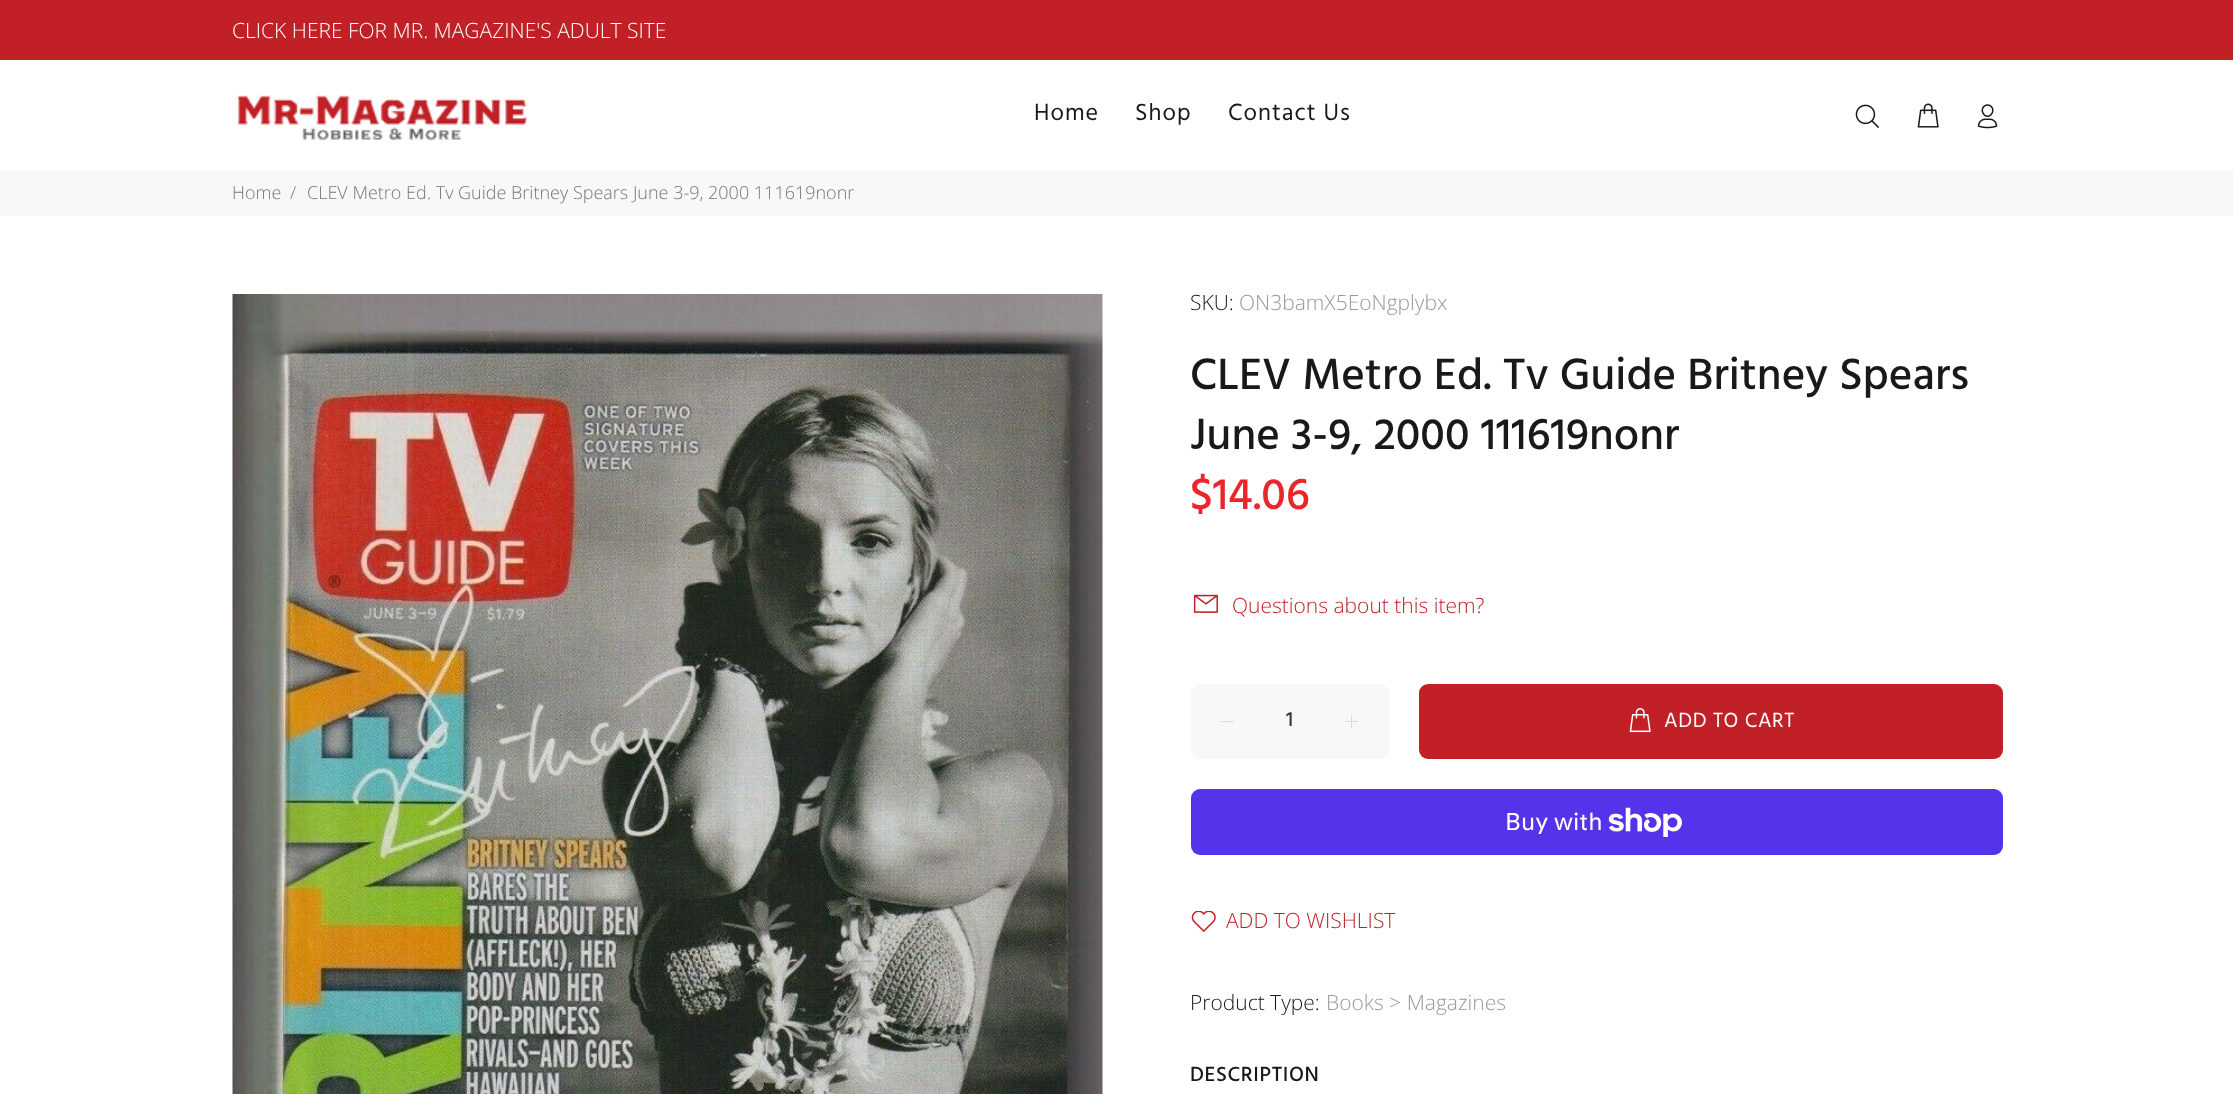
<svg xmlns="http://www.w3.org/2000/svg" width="2233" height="1094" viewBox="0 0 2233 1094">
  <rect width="100%" height="100%" fill="rgb(255,255,255)"/>
  <rect x="0" y="0" width="2233" height="60" fill="rgb(192,32,38)"/>
  <text x="232" y="38" font-family="Open Sans" font-size="21" font-weight="300" fill="rgb(255,255,255)">CLICK HERE FOR MR. MAGAZINE'S ADULT SITE</text>
  <image x="237" y="95" width="290" height="46" href="pic1.png"/>
  <g font-family="Hind" font-size="24" letter-spacing="1" fill="rgb(25,25,25)">
    <text x="1034" y="120">Home</text>
    <text x="1135" y="120">Shop</text>
    <text x="1228" y="120">Contact Us</text>
  </g>
  <image x="1855" y="104" width="24" height="24" href="pic2.png"/>
  <image x="1917" y="103" width="22" height="25" href="pic3.png"/>
  <image x="1977" y="104" width="21" height="25" href="pic4.png"/>
  <rect x="0" y="171" width="2233" height="45" fill="rgb(247,248,250)"/>
  <g font-family="Open Sans" font-size="18" font-weight="300" fill="rgb(119,119,119)">
    <text x="232" y="199">Home</text>
    <text x="290" y="199">/</text>
    <text x="307" y="199">CLEV Metro Ed. Tv Guide Britney Spears June 3-9, 2000 111619nonr</text>
  </g>
  <image x="232" y="294" width="871" height="800" href="pic5.png"/>
  <text x="1190" y="310" font-family="Open Sans" font-size="21" font-weight="300" fill="rgb(25,25,25)">SKU:</text>
  <text x="1239" y="310" font-family="Open Sans" font-size="21" font-weight="300" fill="rgb(153,153,153)">ON3bamX5EoNgplybx</text>
  <g font-family="Hind" font-size="45" font-weight="500" letter-spacing="0.05" fill="rgb(25,25,25)">
    <text>
      <tspan x="1190" y="389">CLEV Metro Ed. Tv Guide Britney Spears</tspan>
      <tspan x="1190" y="449">June 3-9, 2000 111619nonr</tspan>
    </text>
  </g>
  <text x="1190" y="509" font-family="Hind" font-size="45" font-weight="500" fill="rgb(235,37,44)">$14.06</text>
  <image x="1193" y="594" width="25" height="19" href="pic6.png"/>
  <text x="1232" y="613" font-family="Open Sans" font-size="21" font-weight="300" fill="rgb(192,32,38)">Questions about this item?</text>
  <rect x="1191" y="684" width="198" height="75" rx="9" fill="rgb(247,248,250)"/>
  <image x="1220" y="721" width="14" height="1" href="pic7.png"/>
  <text x="1286" y="726" font-family="Hind" font-size="21" font-weight="500" fill="rgb(51,51,51)">1</text>
  <image x="1344" y="714" width="15" height="14" href="pic8.png"/>
  <rect x="1419" y="684" width="584" height="75" rx="9" fill="rgb(192,32,38)"/>
  <image x="1629" y="708" width="22" height="25" href="pic9.png"/>
  <text x="1664" y="727" font-family="Hind" font-size="21" letter-spacing="0.6" fill="rgb(255,255,255)">ADD TO CART</text>
  <rect x="1191" y="789" width="812" height="66" rx="9" fill="rgb(84,51,235)"/>
  <text x="1505" y="830" font-family="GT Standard" font-size="24" fill="rgb(255,255,255)">Buy with</text>
  <image x="1608" y="807" width="74" height="30" href="pic10.png"/>
  <image x="1191" y="911" width="25" height="21" href="pic11.png"/>
  <text x="1226" y="928" font-family="Open Sans" font-size="21" font-weight="300" fill="rgb(192,32,38)">ADD TO WISHLIST</text>
  <text x="1190" y="1010" font-family="Open Sans" font-size="21" font-weight="300" fill="rgb(25,25,25)">Product Type:</text>
  <text x="1326" y="1010" font-family="Open Sans" font-size="21" font-weight="300" fill="rgb(153,153,153)">Books &gt; Magazines</text>
  <text x="1190" y="1081" font-family="Hind" font-size="21" font-weight="500" letter-spacing="0.6" fill="rgb(25,25,25)">DESCRIPTION</text>
</svg>
